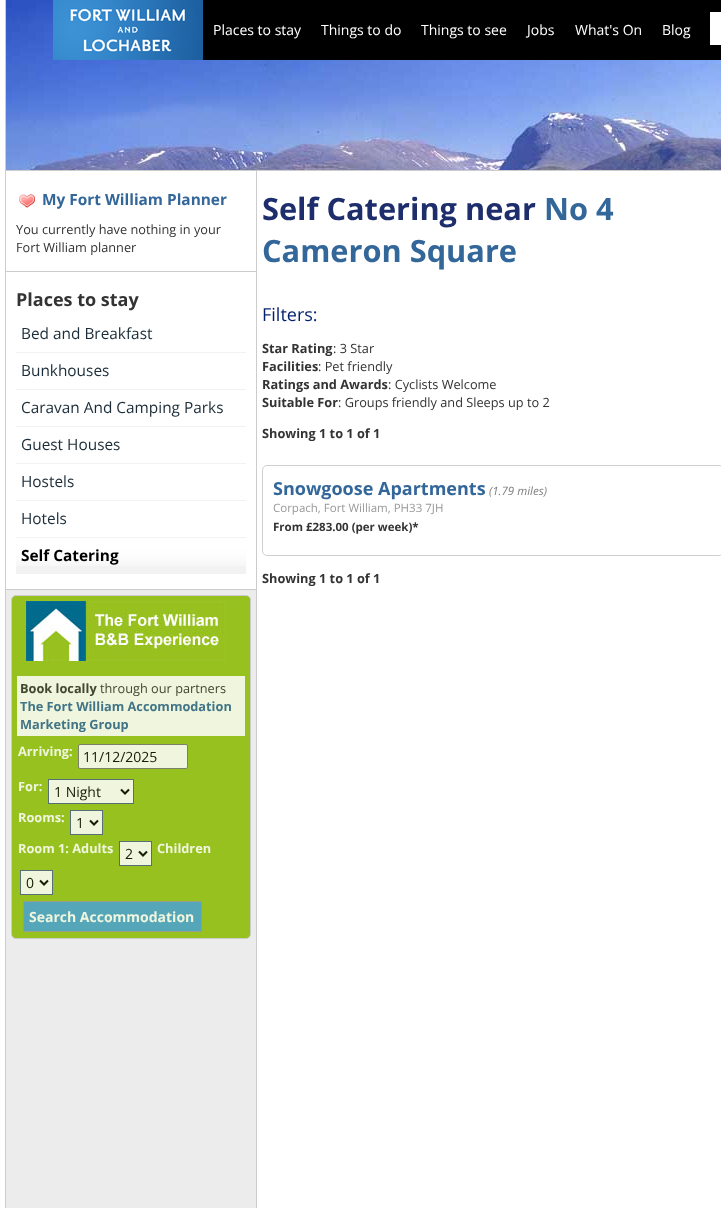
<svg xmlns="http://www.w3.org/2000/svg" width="721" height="1208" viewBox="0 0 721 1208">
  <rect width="100%" height="100%" fill="rgb(255,255,255)"/>
  <image x="6" y="0" width="715" height="170" href="pic2.png"/>
  <image x="53" y="0" width="150" height="60" href="pic1.png"/>
  <rect x="203" y="0" width="518" height="60" fill="rgb(0,0,0)"/>
  <g font-family="Open Sans" font-size="14" fill="rgb(255,255,255)">
    <text x="213" y="35">Places to stay</text>
    <text x="321" y="35">Things to do</text>
    <text x="421" y="35">Things to see</text>
    <text x="527" y="35">Jobs</text>
    <text x="575" y="35">What's On</text>
    <text x="662" y="35">Blog</text>
  </g>
  <rect x="710" y="12" width="11" height="33" fill="rgb(255,255,255)"/>
  <rect x="6" y="590" width="250" height="618" fill="rgb(236,236,236)"/>
  <rect x="5" y="0" width="1" height="1208" fill="rgb(204,204,204)"/>
  <rect x="6" y="170" width="250" height="1" fill="rgb(204,204,204)"/>
  <image x="19" y="194" width="16" height="14" href="pic3.png"/>
  <text x="42" y="205" font-family="Open Sans" font-size="15.4" font-weight="bold" fill="rgb(51,102,153)">My Fort William Planner</text>
  <g font-family="Open Sans" font-size="12.75" fill="rgb(51,51,51)">
    <text>
      <tspan x="16" y="234">You currently have nothing in your</tspan>
      <tspan x="16" y="252">Fort William planner</tspan>
    </text>
  </g>
  <rect x="6" y="271" width="250" height="1" fill="rgb(204,204,204)"/>
  <rect x="6" y="589" width="250" height="1" fill="rgb(204,204,204)"/>
  <text x="16" y="306" font-family="Open Sans" font-size="18" font-weight="bold" fill="rgb(51,51,51)">Places to stay</text>
  <rect x="16" y="352" width="230" height="1" fill="rgb(242,242,242)"/>
  <text x="21" y="339" font-family="Open Sans" font-size="15.4" fill="rgb(28,45,57)">Bed and Breakfast</text>
  <rect x="16" y="389" width="230" height="1" fill="rgb(242,242,242)"/>
  <text x="21" y="376" font-family="Open Sans" font-size="15.4" fill="rgb(28,45,57)">Bunkhouses</text>
  <rect x="16" y="426" width="230" height="1" fill="rgb(242,242,242)"/>
  <text x="21" y="413" font-family="Open Sans" font-size="15.4" fill="rgb(28,45,57)">Caravan And Camping Parks</text>
  <rect x="16" y="463" width="230" height="1" fill="rgb(242,242,242)"/>
  <text x="21" y="450" font-family="Open Sans" font-size="15.4" fill="rgb(28,45,57)">Guest Houses</text>
  <rect x="16" y="500" width="230" height="1" fill="rgb(242,242,242)"/>
  <text x="21" y="487" font-family="Open Sans" font-size="15.4" fill="rgb(28,45,57)">Hostels</text>
  <rect x="16" y="537" width="230" height="1" fill="rgb(242,242,242)"/>
  <text x="21" y="524" font-family="Open Sans" font-size="15.4" fill="rgb(28,45,57)">Hotels</text>
  <rect x="16" y="566" width="230" height="8" fill="rgb(242,242,242)"/>
  <image x="16" y="538" width="230" height="28" href="pic4.png"/>
  <text x="21" y="561" font-family="Open Sans" font-size="15.4" font-weight="bold" fill="rgb(0,0,0)">Self Catering</text>
  <rect x="11.5" y="595.5" width="239" height="343" rx="4.5" fill="rgb(151,193,31)" stroke="rgb(204,204,204)"/>
  <image x="26" y="601" width="200" height="60" href="pic5.png"/>
  <rect x="17" y="676" width="228" height="60" fill="rgb(239,246,221)"/>
  <text x="20" y="693" font-family="Open Sans" font-size="12.75" font-weight="bold" fill="rgb(66,72,48)">Book locally</text>
  <text x="100" y="693" font-family="Open Sans" font-size="12.75" fill="rgb(66,72,48)">through our partners</text>
  <g font-family="Open Sans" font-size="12.75" font-weight="bold" fill="rgb(66,116,135)">
    <text>
      <tspan x="20" y="711">The Fort William Accommodation</tspan>
      <tspan x="20" y="729">Marketing Group</tspan>
    </text>
  </g>
  <text x="18" y="756" font-family="Open Sans" font-size="12.75" font-weight="bold" fill="rgb(239,246,221)">Arriving:</text>
  <rect x="78.5" y="744.5" width="109" height="24" rx="1.5" fill="rgb(239,246,221)" stroke="rgb(123,129,105)"/>
  <text x="83" y="762" font-family="Open Sans" font-size="14" fill="rgb(23,29,5)">11/12/2025</text>
  <text x="18" y="791" font-family="Open Sans" font-size="12.75" font-weight="bold" fill="rgb(239,246,221)">For:</text>
  <rect x="48.5" y="779.5" width="85" height="24" fill="rgb(239,246,221)" stroke="rgb(89,111,119)"/>
  <path d="M121 789.5L125 793.5L129 789.5" fill="none" stroke="rgb(23,29,5)" stroke-width="2"/>
  <text x="54" y="797" font-family="Open Sans" font-size="14" fill="rgb(23,29,5)">1 Night</text>
  <text x="18" y="822" font-family="Open Sans" font-size="12.75" font-weight="bold" fill="rgb(239,246,221)">Rooms:</text>
  <rect x="70.5" y="810.5" width="32" height="24" fill="rgb(239,246,221)" stroke="rgb(89,111,119)"/>
  <path d="M90 820.5L94 824.5L98 820.5" fill="none" stroke="rgb(23,29,5)" stroke-width="2"/>
  <text x="76" y="828" font-family="Open Sans" font-size="14" fill="rgb(23,29,5)">1</text>
  <text x="18" y="853" font-family="Open Sans" font-size="12.75" font-weight="bold" fill="rgb(239,246,221)">Room 1: Adults</text>
  <rect x="119.5" y="841.5" width="32" height="24" fill="rgb(239,246,221)" stroke="rgb(89,111,119)"/>
  <path d="M139 851.5L143 855.5L147 851.5" fill="none" stroke="rgb(23,29,5)" stroke-width="2"/>
  <text x="125" y="859" font-family="Open Sans" font-size="14" fill="rgb(23,29,5)">2</text>
  <text x="157" y="853" font-family="Open Sans" font-size="12.75" font-weight="bold" fill="rgb(239,246,221)">Children</text>
  <rect x="20.5" y="870.5" width="32" height="24" fill="rgb(239,246,221)" stroke="rgb(89,111,119)"/>
  <path d="M40 880.5L44 884.5L48 880.5" fill="none" stroke="rgb(23,29,5)" stroke-width="2"/>
  <text x="26" y="888" font-family="Open Sans" font-size="14" fill="rgb(23,29,5)">0</text>
  <rect x="23.5" y="901.5" width="178" height="30" fill="rgb(86,166,186)" stroke="rgb(153,159,135)"/>
  <text x="29" y="922" font-family="Open Sans" font-size="14" font-weight="bold" fill="rgb(239,246,221)">Search Accommodation</text>
  <path d="M256 170H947C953 170 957 174 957 180V283H256ZM257 171H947C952 171 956 175 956 180V283H257Z" fill="rgb(204,204,204)" fill-rule="evenodd"/>
  <text x="262" y="220" font-family="Open Sans" font-size="30.75" font-weight="bold" fill="rgb(30,45,107)">Self Catering near</text>
  <g font-family="Open Sans" font-size="30.75" font-weight="bold" fill="rgb(51,102,153)">
    <text x="544" y="220">No 4</text>
    <text x="262" y="262">Cameron Square</text>
  </g>
  <rect x="256" y="283" width="1" height="925" fill="rgb(204,204,204)"/>
  <text x="262" y="321" font-family="Open Sans" font-size="18" fill="rgb(0,31,110)">Filters:</text>
  <text x="262" y="353" font-family="Open Sans" font-size="12.75" font-weight="bold" fill="rgb(51,51,51)">Star Rating</text>
  <text x="333" y="353" font-family="Open Sans" font-size="12.75" fill="rgb(51,51,51)">: 3 Star</text>
  <text x="262" y="371" font-family="Open Sans" font-size="12.75" font-weight="bold" fill="rgb(51,51,51)">Facilities</text>
  <text x="318" y="371" font-family="Open Sans" font-size="12.75" fill="rgb(51,51,51)">: Pet friendly</text>
  <text x="262" y="389" font-family="Open Sans" font-size="12.75" font-weight="bold" fill="rgb(51,51,51)">Ratings and Awards</text>
  <text x="388" y="389" font-family="Open Sans" font-size="12.75" fill="rgb(51,51,51)">: Cyclists Welcome</text>
  <text x="262" y="407" font-family="Open Sans" font-size="12.75" font-weight="bold" fill="rgb(51,51,51)">Suitable For</text>
  <text x="338" y="407" font-family="Open Sans" font-size="12.75" fill="rgb(51,51,51)">: Groups friendly and Sleeps up to 2</text>
  <text x="262" y="438" font-family="Open Sans" font-size="12.75" font-weight="bold" fill="rgb(51,51,51)">Showing 1 to 1 of 1</text>
  <rect x="262.5" y="465.5" width="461" height="90" rx="4.5" fill="none" stroke="rgb(207,207,207)"/>
  <text x="273" y="495" font-family="Open Sans" font-size="18" font-weight="bold" fill="rgb(51,102,153)">Snowgoose Apartments</text>
  <text x="489" y="495" font-family="Open Sans" font-size="11.5" font-style="italic" fill="rgb(128,128,128)">(1.79 miles)</text>
  <text x="273" y="512" font-family="Open Sans" font-size="11.5" fill="rgb(153,153,153)">Corpach, Fort William, PH33 7JH</text>
  <text x="273" y="531" font-family="Open Sans" font-size="11.5" font-weight="bold" fill="rgb(51,51,51)">From £283.00 (per week)*</text>
  <text x="262" y="583" font-family="Open Sans" font-size="12.75" font-weight="bold" fill="rgb(51,51,51)">Showing 1 to 1 of 1</text>
</svg>
